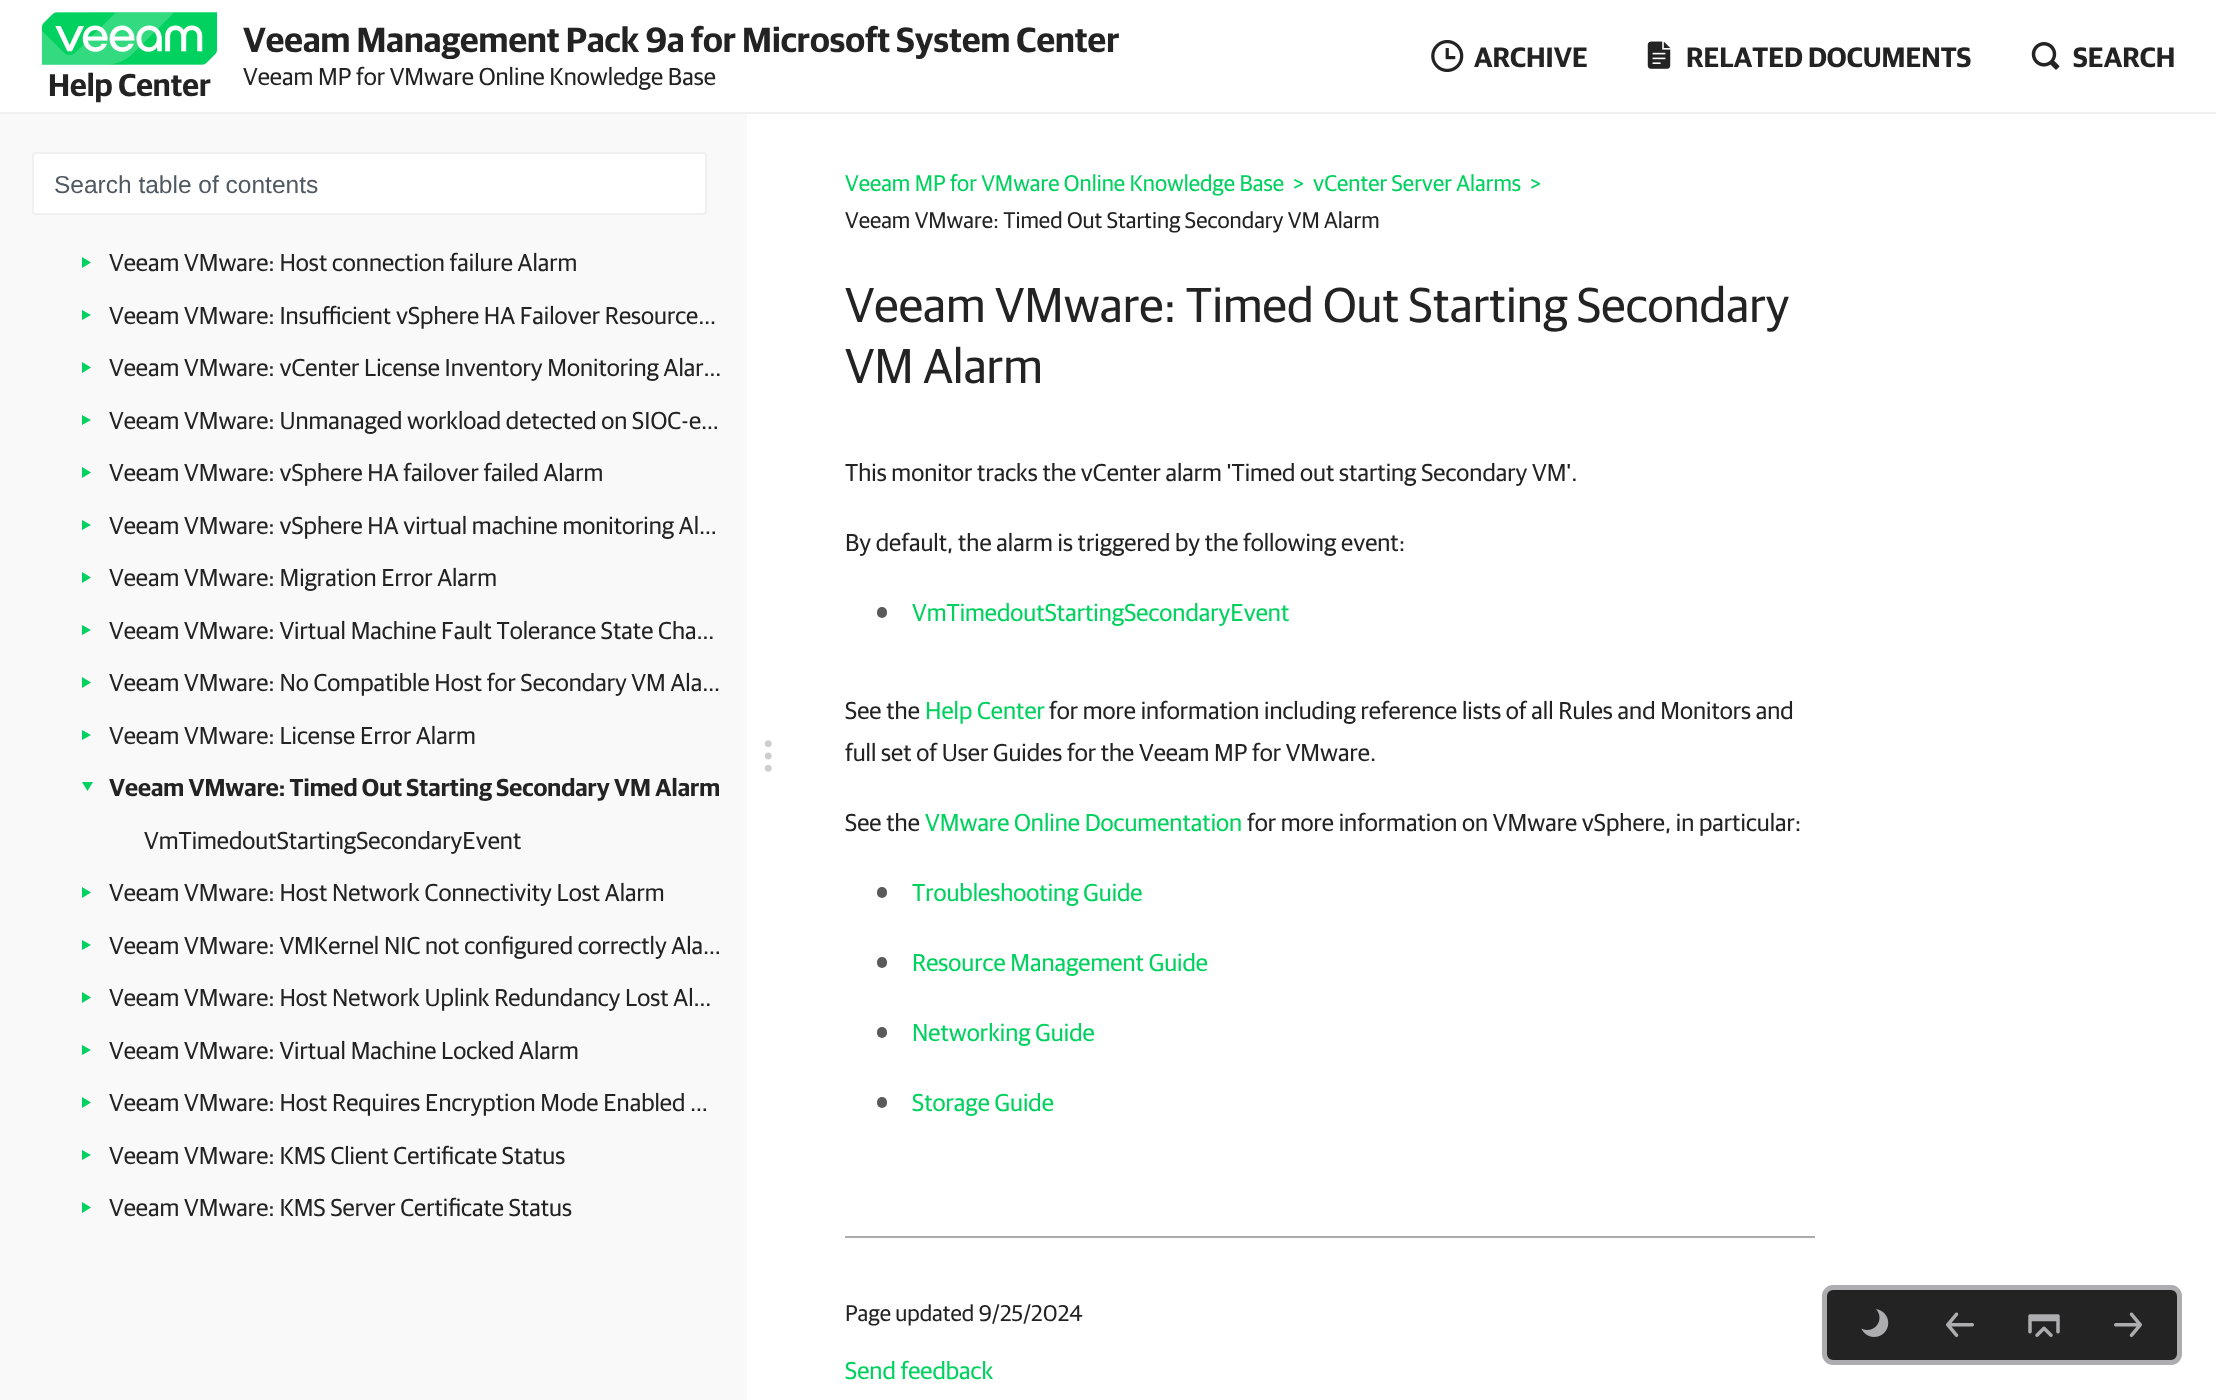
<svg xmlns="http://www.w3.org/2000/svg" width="2216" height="1400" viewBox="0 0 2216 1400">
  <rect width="100%" height="100%" fill="rgb(255,255,255)"/>
  <rect x="0" y="112" width="2216" height="2" fill="rgb(240,240,240)"/>
  <image x="42" y="12" width="175" height="53" href="pic1.png"/>
  <text x="48" y="96" font-family="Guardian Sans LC" font-size="31.5" font-weight="600" fill="rgb(35,35,35)">Help Center</text>
  <text x="243" y="52" font-family="Guardian Sans LC" font-size="35" font-weight="600" fill="rgb(35,35,35)">Veeam Management Pack 9a for Microsoft System Center</text>
  <text x="243" y="85" font-family="Guardian Sans LC" font-size="24.5" fill="rgb(35,35,35)">Veeam MP for VMware Online Knowledge Base</text>
  <image x="1431" y="39" width="33" height="34" href="pic2.png"/>
  <text x="1474" y="67" font-family="Guardian Sans LC" font-size="28" font-weight="600" fill="rgb(35,35,35)">ARCHIVE</text>
  <image x="1647" y="41" width="24" height="28" href="pic3.png"/>
  <text x="1686" y="67" font-family="Guardian Sans LC" font-size="28" font-weight="600" fill="rgb(35,35,35)">RELATED DOCUMENTS</text>
  <image x="2031" y="42" width="29" height="28" href="pic4.png"/>
  <text x="2073" y="67" font-family="Guardian Sans LC" font-size="28" font-weight="600" fill="rgb(35,35,35)">SEARCH</text>
  <rect x="0" y="114" width="747" height="1286" fill="rgb(249,249,249)"/>
  <rect x="33" y="153" width="673" height="61" rx="3" fill="rgb(255,255,255)" stroke="rgb(240,240,240)" stroke-width="2"/>
  <text x="54" y="193" font-family="Liberation Sans" font-size="24.5" fill="rgb(80,88,97)">Search table of contents</text>
  <path d="M82 268V257L91 262.5Z" fill="rgb(0,209,95)"/>
  <text x="109" y="271" font-family="Guardian Sans LC" font-size="24.5" fill="rgb(35,35,35)">Veeam VMware: Host connection failure Alarm</text>
  <path d="M82 320V310L91 315Z" fill="rgb(0,209,95)"/>
  <text x="109" y="324" font-family="Guardian Sans LC" font-size="24.5" fill="rgb(35,35,35)">Veeam VMware: Insufficient vSphere HA Failover Resource…</text>
  <path d="M82 373V362L91 367.5Z" fill="rgb(0,209,95)"/>
  <text x="109" y="376" font-family="Guardian Sans LC" font-size="24.5" fill="rgb(35,35,35)">Veeam VMware: vCenter License Inventory Monitoring Alar…</text>
  <path d="M82 425V415L91 420Z" fill="rgb(0,209,95)"/>
  <text x="109" y="429" font-family="Guardian Sans LC" font-size="24.5" fill="rgb(35,35,35)">Veeam VMware: Unmanaged workload detected on SIOC-e…</text>
  <path d="M82 478V467L91 472.5Z" fill="rgb(0,209,95)"/>
  <text x="109" y="481" font-family="Guardian Sans LC" font-size="24.5" fill="rgb(35,35,35)">Veeam VMware: vSphere HA failover failed Alarm</text>
  <path d="M82 530V520L91 525Z" fill="rgb(0,209,95)"/>
  <text x="109" y="534" font-family="Guardian Sans LC" font-size="24.5" fill="rgb(35,35,35)">Veeam VMware: vSphere HA virtual machine monitoring Al…</text>
  <path d="M82 583V572L91 577.5Z" fill="rgb(0,209,95)"/>
  <text x="109" y="586" font-family="Guardian Sans LC" font-size="24.5" fill="rgb(35,35,35)">Veeam VMware: Migration Error Alarm</text>
  <path d="M82 635V625L91 630Z" fill="rgb(0,209,95)"/>
  <text x="109" y="639" font-family="Guardian Sans LC" font-size="24.5" fill="rgb(35,35,35)">Veeam VMware: Virtual Machine Fault Tolerance State Cha…</text>
  <path d="M82 688V677L91 682.5Z" fill="rgb(0,209,95)"/>
  <text x="109" y="691" font-family="Guardian Sans LC" font-size="24.5" fill="rgb(35,35,35)">Veeam VMware: No Compatible Host for Secondary VM Ala…</text>
  <path d="M82 740V730L91 735Z" fill="rgb(0,209,95)"/>
  <text x="109" y="744" font-family="Guardian Sans LC" font-size="24.5" fill="rgb(35,35,35)">Veeam VMware: License Error Alarm</text>
  <path d="M82 782H93L87.5 791Z" fill="rgb(0,209,95)"/>
  <text x="109" y="796" font-family="Guardian Sans LC" font-size="24.5" font-weight="600" fill="rgb(35,35,35)">Veeam VMware: Timed Out Starting Secondary VM Alarm</text>
  <text x="144" y="849" font-family="Guardian Sans LC" font-size="24.5" fill="rgb(35,35,35)">VmTimedoutStartingSecondaryEvent</text>
  <path d="M82 898V887L91 892.5Z" fill="rgb(0,209,95)"/>
  <text x="109" y="901" font-family="Guardian Sans LC" font-size="24.5" fill="rgb(35,35,35)">Veeam VMware: Host Network Connectivity Lost Alarm</text>
  <path d="M82 950V940L91 945Z" fill="rgb(0,209,95)"/>
  <text x="109" y="954" font-family="Guardian Sans LC" font-size="24.5" fill="rgb(35,35,35)">Veeam VMware: VMKernel NIC not configured correctly Ala…</text>
  <path d="M82 1003V992L91 997.5Z" fill="rgb(0,209,95)"/>
  <text x="109" y="1006" font-family="Guardian Sans LC" font-size="24.5" fill="rgb(35,35,35)">Veeam VMware: Host Network Uplink Redundancy Lost Al…</text>
  <path d="M82 1055V1045L91 1050Z" fill="rgb(0,209,95)"/>
  <text x="109" y="1059" font-family="Guardian Sans LC" font-size="24.5" fill="rgb(35,35,35)">Veeam VMware: Virtual Machine Locked Alarm</text>
  <path d="M82 1108V1097L91 1102.5Z" fill="rgb(0,209,95)"/>
  <text x="109" y="1111" font-family="Guardian Sans LC" font-size="24.5" fill="rgb(35,35,35)">Veeam VMware: Host Requires Encryption Mode Enabled …</text>
  <path d="M82 1160V1150L91 1155Z" fill="rgb(0,209,95)"/>
  <text x="109" y="1164" font-family="Guardian Sans LC" font-size="24.5" fill="rgb(35,35,35)">Veeam VMware: KMS Client Certificate Status</text>
  <path d="M82 1213V1202L91 1207.5Z" fill="rgb(0,209,95)"/>
  <text x="109" y="1216" font-family="Guardian Sans LC" font-size="24.5" fill="rgb(35,35,35)">Veeam VMware: KMS Server Certificate Status</text>
  <image x="764" y="740" width="8" height="32" href="pic5.png"/>
  <g font-family="Guardian Sans LC" font-size="22.75" fill="rgb(0,209,95)">
    <text x="845" y="191">Veeam MP for VMware Online Knowledge Base</text>
    <text x="1293" y="191">&gt;</text>
    <text x="1313" y="191">vCenter Server Alarms</text>
    <text x="1530" y="191">&gt;</text>
  </g>
  <text x="845" y="228" font-family="Guardian Sans LC" font-size="22.75" fill="rgb(35,35,35)">Veeam VMware: Timed Out Starting Secondary VM Alarm</text>
  <g font-family="Guardian Sans LC" font-size="49" fill="rgb(35,35,35)">
    <text>
      <tspan x="845" y="322">Veeam VMware: Timed Out Starting Secondary</tspan>
      <tspan x="845" y="383">VM Alarm</tspan>
    </text>
  </g>
  <g font-family="Guardian Sans LC" font-size="24.5" fill="rgb(35,35,35)">
    <text x="845" y="481">This monitor tracks the vCenter alarm 'Timed out starting Secondary VM'.</text>
    <text x="845" y="551">By default, the alarm is triggered by the following event:</text>
  </g>
  <rect x="877" y="607" width="10" height="11" rx="5" fill="rgb(90,90,90)"/>
  <text x="912" y="621" font-family="Guardian Sans LC" font-size="24.5" fill="rgb(0,209,95)">VmTimedoutStartingSecondaryEvent</text>
  <text x="845" y="719" font-family="Guardian Sans LC" font-size="24.5" fill="rgb(35,35,35)">See the</text>
  <text x="925" y="719" font-family="Guardian Sans LC" font-size="24.5" fill="rgb(0,209,95)">Help Center</text>
  <g font-family="Guardian Sans LC" font-size="24.5" fill="rgb(35,35,35)">
    <text x="1049" y="719">for more information including reference lists of all Rules and Monitors and</text>
    <text x="845" y="761">full set of User Guides for the Veeam MP for VMware.</text>
    <text x="845" y="831">See the</text>
  </g>
  <text x="925" y="831" font-family="Guardian Sans LC" font-size="24.5" fill="rgb(0,209,95)">VMware Online Documentation</text>
  <text x="1247" y="831" font-family="Guardian Sans LC" font-size="24.5" fill="rgb(35,35,35)">for more information on VMware vSphere, in particular:</text>
  <rect x="877" y="887" width="10" height="11" rx="5" fill="rgb(90,90,90)"/>
  <text x="912" y="901" font-family="Guardian Sans LC" font-size="24.5" fill="rgb(0,209,95)">Troubleshooting Guide</text>
  <rect x="877" y="957" width="10" height="11" rx="5" fill="rgb(90,90,90)"/>
  <text x="912" y="971" font-family="Guardian Sans LC" font-size="24.5" fill="rgb(0,209,95)">Resource Management Guide</text>
  <rect x="877" y="1027" width="10" height="11" rx="5" fill="rgb(90,90,90)"/>
  <text x="912" y="1041" font-family="Guardian Sans LC" font-size="24.5" fill="rgb(0,209,95)">Networking Guide</text>
  <rect x="877" y="1097" width="10" height="11" rx="5" fill="rgb(90,90,90)"/>
  <text x="912" y="1111" font-family="Guardian Sans LC" font-size="24.5" fill="rgb(0,209,95)">Storage Guide</text>
  <rect x="845" y="1236" width="970" height="2" fill="rgb(173,172,175)"/>
  <text x="845" y="1321" font-family="Guardian Sans LC" font-size="22.75" fill="rgb(35,35,35)">Page updated 9/25/2024</text>
  <text x="845" y="1379" font-family="Guardian Sans LC" font-size="24.5" fill="rgb(0,209,95)">Send feedback</text>
  <rect x="1824.5" y="1287.5" width="355" height="75" rx="8.5" fill="rgb(35,35,35)" stroke="rgb(173,172,175)" stroke-width="5"/>
  <image x="1861" y="1309" width="28" height="28" href="pic6.png"/>
  <image x="1946" y="1312" width="28" height="25" href="pic7.png"/>
  <image x="2028" y="1314" width="32" height="23" href="pic8.png"/>
  <image x="2114" y="1312" width="28" height="25" href="pic9.png"/>
</svg>
